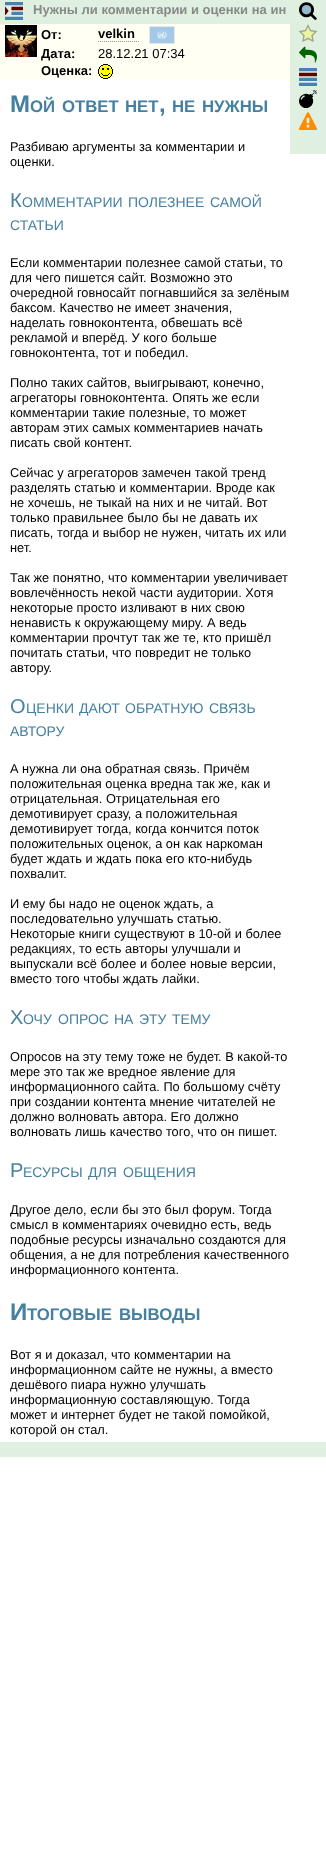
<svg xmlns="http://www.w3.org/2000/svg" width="326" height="1857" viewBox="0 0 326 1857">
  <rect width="100%" height="100%" fill="rgb(255,255,255)"/>
  <rect x="0" y="0" width="326" height="24" fill="rgb(224,240,224)"/>
  <image x="5" y="2" width="18" height="18" href="pic1.png"/>
  <text x="33" y="14" font-family="Liberation Sans" font-size="13" font-weight="bold" fill="rgb(136,136,136)">Нужны ли комментарии и оценки на ин</text>
  <rect x="290" y="24" width="36" height="130" fill="rgb(224,240,224)"/>
  <image x="299" y="2" width="18" height="18" href="pic2.png"/>
  <image x="299" y="24" width="18" height="18" href="pic3.png"/>
  <image x="299" y="46" width="18" height="17" href="pic4.png"/>
  <image x="299" y="68" width="18" height="18" href="pic5.png"/>
  <image x="299" y="90" width="18" height="18" href="pic6.png"/>
  <image x="299" y="112" width="18" height="18" href="pic7.png"/>
  <rect x="0" y="24" width="38" height="55" fill="rgb(255,255,244)"/>
  <image x="5" y="25" width="32" height="32" href="pic8.png"/>
  <rect x="38" y="24" width="252" height="21" fill="rgb(255,255,244)"/>
  <text x="41" y="39" font-family="Liberation Sans" font-size="13" font-weight="bold" fill="rgb(0,0,0)">От:</text>
  <rect x="149.5" y="26.5" width="25" height="17" fill="none" stroke="rgb(233,233,228)"/>
  <text x="98" y="38" font-family="Liberation Sans" font-size="13" font-weight="bold" fill="rgb(0,0,0)">velkin</text>
  <path d="M98 41.5H139" fill="none" stroke="rgb(153,153,146)" stroke-dasharray="1 1"/>
  <image x="150" y="27" width="24" height="16" href="pic9.png"/>
  <rect x="38" y="45" width="252" height="17" fill="rgb(255,255,244)"/>
  <text x="41" y="58" font-family="Liberation Sans" font-size="13" font-weight="bold" fill="rgb(0,0,0)">Дата:</text>
  <text x="98" y="58" font-family="Liberation Sans" font-size="13" fill="rgb(0,0,0)">28.12.21 07:34</text>
  <rect x="38" y="62" width="252" height="17" fill="rgb(255,255,244)"/>
  <text x="41" y="75" font-family="Liberation Sans" font-size="13" font-weight="bold" fill="rgb(0,0,0)">Оценка:</text>
  <image x="98" y="64" width="15" height="15" href="pic10.png"/>
  <text x="10" y="112" font-family="Liberation Sans" font-size="24" font-weight="bold" fill="rgb(69,128,160)">М</text>
  <g font-family="Liberation Sans" font-size="16.75" font-weight="bold" fill="rgb(69,128,160)">
    <text x="30" y="112">ОЙ</text>
    <text x="62" y="112">ОТВЕТ</text>
    <text x="125" y="112">НЕТ</text>
  </g>
  <text x="159" y="112" font-family="Liberation Sans" font-size="24" font-weight="bold" fill="rgb(69,128,160)">,</text>
  <g font-family="Liberation Sans" font-size="16.75" font-weight="bold" fill="rgb(69,128,160)">
    <text x="172" y="112">НЕ</text>
    <text x="202" y="112">НУЖНЫ</text>
  </g>
  <g font-family="Liberation Sans" font-size="12.8" fill="rgb(0,0,0)">
    <text>
      <tspan x="10" y="151">Разбиваю аргументы за комментарии и</tspan>
      <tspan x="10" y="166">оценки.</tspan>
    </text>
  </g>
  <text x="10" y="207" font-family="Liberation Sans" font-size="20" fill="rgb(69,128,160)">К</text>
  <g font-family="Liberation Sans" font-size="14" fill="rgb(69,128,160)">
    <text x="22" y="207">ОММЕНТАРИИ</text>
    <text x="128" y="207">ПОЛЕЗНЕЕ</text>
    <text x="210" y="207">САМОЙ</text>
    <text x="10" y="230">СТАТЬИ</text>
  </g>
  <g font-family="Liberation Sans" font-size="12.8" fill="rgb(0,0,0)">
    <text>
      <tspan x="10" y="267">Если комментарии полезнее самой статьи, то</tspan>
      <tspan x="10" y="282">для чего пишется сайт. Возможно это</tspan>
      <tspan x="10" y="297">очередной говносайт погнавшийся за зелёным</tspan>
      <tspan x="10" y="312">баксом. Качество не имеет значения,</tspan>
      <tspan x="10" y="327">наделать говноконтента, обвешать всё</tspan>
      <tspan x="10" y="342">рекламой и вперёд. У кого больше</tspan>
      <tspan x="10" y="357">говноконтента, тот и победил.</tspan>
    </text>
    <text>
      <tspan x="10" y="387">Полно таких сайтов, выигрывают, конечно,</tspan>
      <tspan x="10" y="402">агрегаторы говноконтента. Опять же если</tspan>
      <tspan x="10" y="417">комментарии такие полезные, то может</tspan>
      <tspan x="10" y="432">авторам этих самых комментариев начать</tspan>
      <tspan x="10" y="447">писать свой контент.</tspan>
    </text>
    <text>
      <tspan x="10" y="477">Сейчас у агрегаторов замечен такой тренд</tspan>
      <tspan x="10" y="492">разделять статью и комментарии. Вроде как</tspan>
      <tspan x="10" y="507">не хочешь, не тыкай на них и не читай. Вот</tspan>
      <tspan x="10" y="522">только правильнее было бы не давать их</tspan>
      <tspan x="10" y="537">писать, тогда и выбор не нужен, читать их или</tspan>
      <tspan x="10" y="552">нет.</tspan>
    </text>
    <text>
      <tspan x="10" y="582">Так же понятно, что комментарии увеличивает</tspan>
      <tspan x="10" y="597">вовлечённость некой части аудитории. Хотя</tspan>
      <tspan x="10" y="612">некоторые просто изливают в них свою</tspan>
      <tspan x="10" y="627">ненависть к окружающему миру. А ведь</tspan>
      <tspan x="10" y="642">комментарии прочтут так же те, кто пришёл</tspan>
      <tspan x="10" y="657">почитать статьи, что повредит не только</tspan>
      <tspan x="10" y="672">автору.</tspan>
    </text>
  </g>
  <text x="10" y="713" font-family="Liberation Sans" font-size="20" fill="rgb(69,128,160)">О</text>
  <g font-family="Liberation Sans" font-size="14" fill="rgb(69,128,160)">
    <text x="26" y="713">ЦЕНКИ</text>
    <text x="79" y="713">ДАЮТ</text>
    <text x="125" y="713">ОБРАТНУЮ</text>
    <text x="209" y="713">СВЯЗЬ</text>
    <text x="10" y="736">АВТОРУ</text>
  </g>
  <g font-family="Liberation Sans" font-size="12.8" fill="rgb(0,0,0)">
    <text>
      <tspan x="10" y="773">А нужна ли она обратная связь. Причём</tspan>
      <tspan x="10" y="788">положительная оценка вредна так же, как и</tspan>
      <tspan x="10" y="803">отрицательная. Отрицательная его</tspan>
      <tspan x="10" y="818">демотивирует сразу, а положительная</tspan>
      <tspan x="10" y="833">демотивирует тогда, когда кончится поток</tspan>
      <tspan x="10" y="848">положительных оценок, а он как наркоман</tspan>
      <tspan x="10" y="863">будет ждать и ждать пока его кто-нибудь</tspan>
      <tspan x="10" y="878">похвалит.</tspan>
    </text>
    <text>
      <tspan x="10" y="908">И ему бы надо не оценок ждать, а</tspan>
      <tspan x="10" y="923">последовательно улучшать статью.</tspan>
      <tspan x="10" y="938">Некоторые книги существуют в 10-ой и более</tspan>
      <tspan x="10" y="953">редакциях, то есть авторы улучшали и</tspan>
      <tspan x="10" y="968">выпускали всё более и более новые версии,</tspan>
      <tspan x="10" y="983">вместо того чтобы ждать лайки.</tspan>
    </text>
  </g>
  <text x="10" y="1024" font-family="Liberation Sans" font-size="20" fill="rgb(69,128,160)">Х</text>
  <g font-family="Liberation Sans" font-size="14" fill="rgb(69,128,160)">
    <text x="23" y="1024">ОЧУ</text>
    <text x="58" y="1024">ОПРОС</text>
    <text x="114" y="1024">НА</text>
    <text x="139" y="1024">ЭТУ</text>
    <text x="172" y="1024">ТЕМУ</text>
  </g>
  <g font-family="Liberation Sans" font-size="12.8" fill="rgb(0,0,0)">
    <text>
      <tspan x="10" y="1061">Опросов на эту тему тоже не будет. В какой-то</tspan>
      <tspan x="10" y="1076">мере это так же вредное явление для</tspan>
      <tspan x="10" y="1091">информационного сайта. По большому счёту</tspan>
      <tspan x="10" y="1106">при создании контента мнение читателей не</tspan>
      <tspan x="10" y="1121">должно волновать автора. Его должно</tspan>
      <tspan x="10" y="1136">волновать лишь качество того, что он пишет.</tspan>
    </text>
  </g>
  <text x="10" y="1177" font-family="Liberation Sans" font-size="20" fill="rgb(69,128,160)">Р</text>
  <g font-family="Liberation Sans" font-size="14" fill="rgb(69,128,160)">
    <text x="23" y="1177">ЕСУРСЫ</text>
    <text x="88" y="1177">ДЛЯ</text>
    <text x="123" y="1177">ОБЩЕНИЯ</text>
  </g>
  <g font-family="Liberation Sans" font-size="12.8" fill="rgb(0,0,0)">
    <text>
      <tspan x="10" y="1214">Другое дело, если бы это был форум. Тогда</tspan>
      <tspan x="10" y="1229">смысл в комментариях очевидно есть, ведь</tspan>
      <tspan x="10" y="1244">подобные ресурсы изначально создаются для</tspan>
      <tspan x="10" y="1259">общения, а не для потребления качественного</tspan>
      <tspan x="10" y="1274">информационного контента.</tspan>
    </text>
  </g>
  <text x="10" y="1320" font-family="Liberation Sans" font-size="24" font-weight="bold" fill="rgb(69,128,160)">И</text>
  <g font-family="Liberation Sans" font-size="16.75" font-weight="bold" fill="rgb(69,128,160)">
    <text x="27" y="1320">ТОГОВЫЕ</text>
    <text x="119" y="1320">ВЫВОДЫ</text>
  </g>
  <g font-family="Liberation Sans" font-size="12.8" fill="rgb(0,0,0)">
    <text>
      <tspan x="10" y="1359">Вот я и доказал, что комментарии на</tspan>
      <tspan x="10" y="1374">информационном сайте не нужны, а вместо</tspan>
      <tspan x="10" y="1389">дешёвого пиара нужно улучшать</tspan>
      <tspan x="10" y="1404">информационную составляющую. Тогда</tspan>
      <tspan x="10" y="1419">может и интернет будет не такой помойкой,</tspan>
      <tspan x="10" y="1434">которой он стал.</tspan>
    </text>
  </g>
  <rect x="0" y="1442" width="326" height="15" fill="rgb(224,240,224)"/>
</svg>
